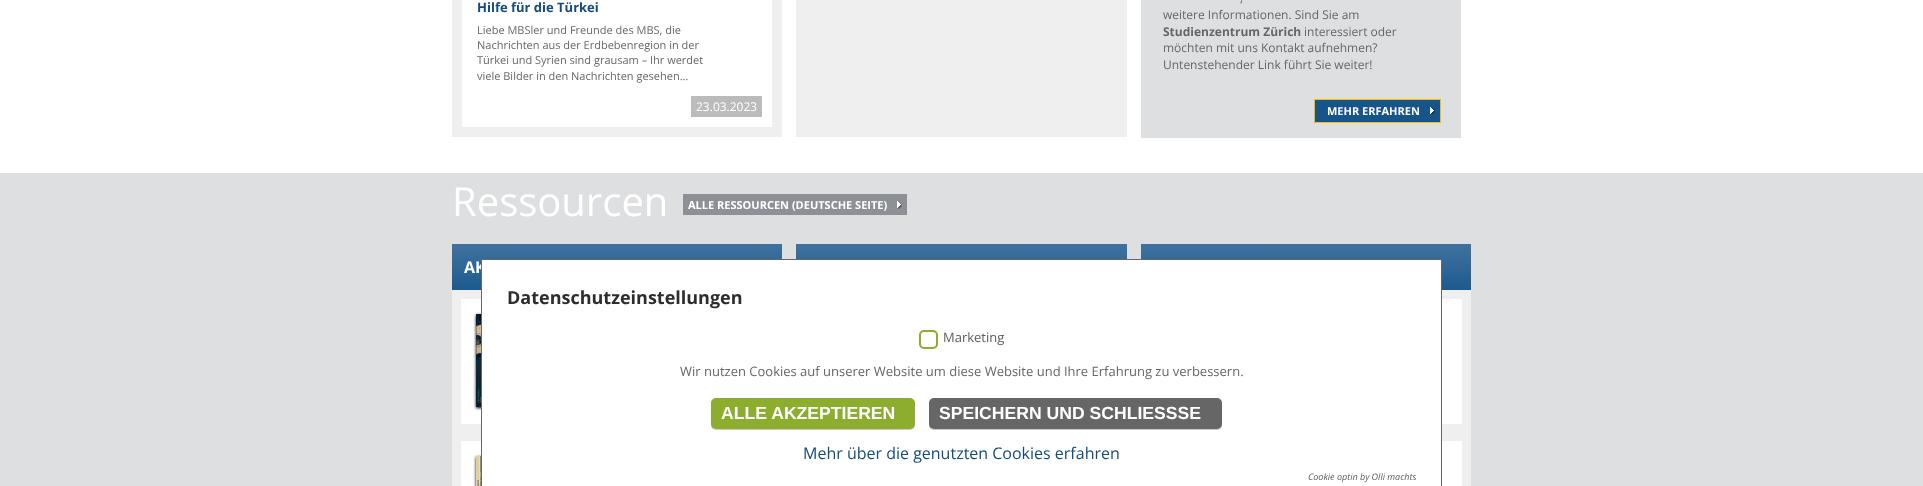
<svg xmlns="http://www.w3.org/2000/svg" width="1923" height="486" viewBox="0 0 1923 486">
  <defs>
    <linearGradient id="g1" gradientUnits="userSpaceOnUse" x1="617" y1="244" x2="617" y2="290"><stop offset="0" stop-color="rgb(63,114,159)"/><stop offset="1" stop-color="rgb(30,90,142)"/></linearGradient>
    <linearGradient id="g2" gradientUnits="userSpaceOnUse" x1="962" y1="244" x2="962" y2="290"><stop offset="0" stop-color="rgb(63,114,159)"/><stop offset="1" stop-color="rgb(30,90,142)"/></linearGradient>
    <linearGradient id="g3" gradientUnits="userSpaceOnUse" x1="1306" y1="244" x2="1306" y2="290"><stop offset="0" stop-color="rgb(63,114,159)"/><stop offset="1" stop-color="rgb(30,90,142)"/></linearGradient>
  </defs>
  <rect width="100%" height="100%" fill="rgb(255,255,255)"/>
  <rect x="457" y="-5" width="320" height="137" fill="none" stroke="rgb(239,239,239)" stroke-width="10"/>
  <text x="477" y="12" font-family="Open Sans" font-size="13" font-weight="bold" fill="rgb(19,75,123)">Hilfe für die Türkei</text>
  <g font-family="Open Sans" font-size="11" fill="rgb(102,102,102)">
    <text>
      <tspan x="477" y="34">Liebe MBSler und Freunde des MBS, die</tspan>
      <tspan x="477" y="49">Nachrichten aus der Erdbebenregion in der</tspan>
      <tspan x="477" y="64">Türkei und Syrien sind grausam – Ihr werdet</tspan>
      <tspan x="477" y="80">viele Bilder in den Nachrichten gesehen...</tspan>
    </text>
  </g>
  <rect x="691" y="96" width="71" height="21" fill="rgb(187,187,187)"/>
  <text x="696" y="111" font-family="Open Sans" font-size="12" fill="rgb(255,255,255)">23.03.2023</text>
  <rect x="796" y="0" width="331" height="137" fill="rgb(239,239,239)"/>
  <rect x="1141" y="0" width="320" height="138" fill="rgb(222,223,224)"/>
  <g font-family="Open Sans" font-size="12" fill="rgb(102,102,102)">
    <text x="1240" y="2">,</text>
    <text x="1163" y="19">weitere Informationen. Sind Sie am</text>
  </g>
  <text x="1163" y="36" font-family="Open Sans" font-size="12" font-weight="bold" fill="rgb(102,102,102)">Studienzentrum Zürich</text>
  <g font-family="Open Sans" font-size="12" fill="rgb(102,102,102)">
    <text x="1304" y="36">interessiert oder</text>
    <text>
      <tspan x="1163" y="52">möchten mit uns Kontakt aufnehmen?</tspan>
      <tspan x="1163" y="69">Untenstehender Link führt Sie weiter!</tspan>
    </text>
  </g>
  <rect x="1315" y="100" width="125" height="22" fill="rgb(22,84,138)"/>
  <image x="1430" y="107" width="5" height="8" href="pic1.png"/>
  <rect x="1314.5" y="99.5" width="126" height="23" fill="none" stroke="rgb(251,185,0)"/>
  <text x="1327" y="115" font-family="Open Sans" font-size="11" font-weight="bold" fill="rgb(255,255,255)">MEHR ERFAHREN</text>
  <rect x="0" y="173" width="1923" height="313" fill="rgb(222,223,224)"/>
  <text x="452" y="216" font-family="Open Sans" font-size="40" fill="rgb(255,255,255)">Ressourcen</text>
  <rect x="683" y="194" width="224" height="21" fill="rgb(141,144,148)"/>
  <text x="688" y="209" font-family="Open Sans" font-size="11" font-weight="bold" fill="rgb(255,255,255)">ALLE RESSOURCEN (DEUTSCHE SEITE)</text>
  <image x="897" y="201" width="5" height="8" href="pic2.png"/>
  <rect x="452" y="244" width="330" height="46" fill="url(#g1)"/>
  <text x="464" y="273" font-family="Open Sans" font-size="16" font-weight="bold" fill="rgb(255,255,255)">AK</text>
  <rect x="452" y="290" width="29" height="196" fill="rgb(239,239,239)"/>
  <rect x="461" y="299" width="20" height="125" fill="rgb(255,255,255)"/>
  <rect x="476" y="315" width="70" height="93" fill="rgb(0,0,0)" filter="blur(1.5px)"/>
  <image x="476" y="314" width="5" height="93" href="pic3.png"/>
  <rect x="461" y="441" width="20" height="45" fill="rgb(255,255,255)"/>
  <rect x="476" y="457" width="70" height="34" fill="rgb(0,0,0)" filter="blur(1.5px)"/>
  <image x="476" y="456" width="5" height="30" href="pic4.png"/>
  <rect x="796" y="244" width="331" height="15" fill="url(#g2)"/>
  <rect x="1141" y="244" width="330" height="46" fill="url(#g3)"/>
  <rect x="1442" y="290" width="29" height="196" fill="rgb(239,239,239)"/>
  <rect x="1442" y="299" width="20" height="125" fill="rgb(255,255,255)"/>
  <rect x="1442" y="441" width="20" height="45" fill="rgb(255,255,255)"/>
  <rect x="482" y="260" width="959" height="226" fill="rgb(255,255,255)"/>
  <rect x="481" y="259" width="961" height="1" fill="rgb(102,102,102)"/>
  <rect x="1441" y="259" width="1" height="227" fill="rgb(102,102,102)"/>
  <rect x="481" y="259" width="1" height="227" fill="rgb(102,102,102)"/>
  <text x="507" y="304" font-family="Open Sans" font-size="18" font-weight="bold" fill="rgb(45,45,45)">Datenschutzeinstellungen</text>
  <rect x="920" y="331" width="17" height="17" rx="4" fill="none" stroke="rgb(140,173,45)" stroke-width="2"/>
  <text x="943" y="342" font-family="Open Sans" font-size="13" fill="rgb(92,92,92)">Marketing</text>
  <text x="680" y="376" font-family="Open Sans" font-size="13" fill="rgb(102,102,102)">Wir nutzen Cookies auf unserer Website um diese Website und Ihre Erfahrung zu verbessern.</text>
  <rect x="711" y="399" width="204" height="31" rx="5" fill="rgba(0,0,0,0.21)" filter="blur(0.5px)"/>
  <rect x="711" y="398" width="204" height="31" rx="5" fill="rgb(140,173,45)"/>
  <text x="721" y="419" font-family="Liberation Sans" font-size="17.6" font-weight="bold" fill="rgb(255,255,255)">ALLE AKZEPTIEREN</text>
  <rect x="929" y="399" width="293" height="31" rx="5" fill="rgba(0,0,0,0.21)" filter="blur(0.5px)"/>
  <rect x="929" y="398" width="293" height="31" rx="5" fill="rgb(102,102,102)"/>
  <text x="939" y="419" font-family="Liberation Sans" font-size="17.6" font-weight="bold" fill="rgb(255,255,255)">SPEICHERN UND SCHLIESSSE</text>
  <text x="803" y="459" font-family="Open Sans" font-size="16" fill="rgb(19,75,123)">Mehr über die genutzten Cookies erfahren</text>
  <text x="1308" y="480" font-family="Open Sans" font-size="9" font-style="italic" fill="rgb(92,92,92)">Cookie optin by Olli machts</text>
</svg>
